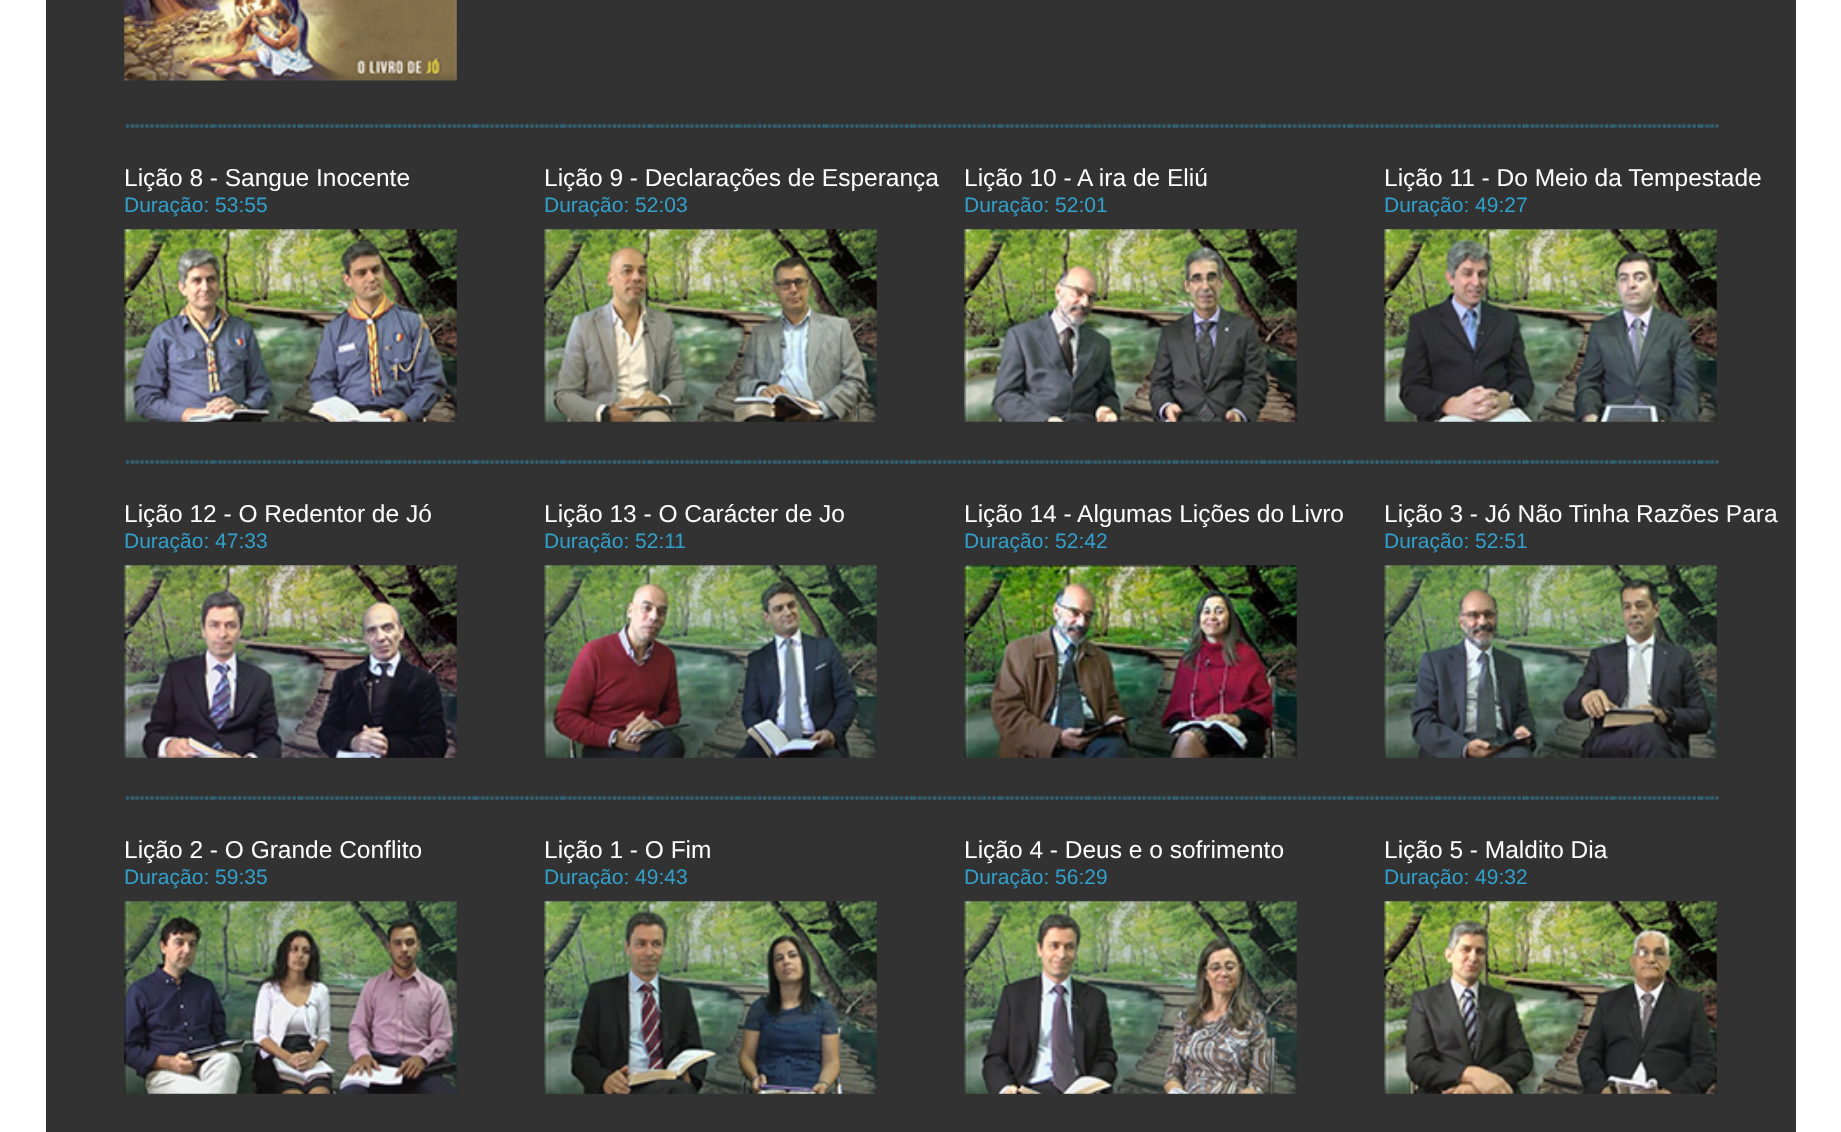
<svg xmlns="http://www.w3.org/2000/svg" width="1841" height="1132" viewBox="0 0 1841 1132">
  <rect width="100%" height="100%" fill="rgb(255,255,255)"/>
  <rect x="46" y="0" width="1750" height="1132" fill="rgb(50,50,50)"/>
  <image x="124" y="0" width="333" height="81" href="pic1.png"/>
  <image x="126" y="124" width="1593" height="4" href="pic2.png"/>
  <text x="124" y="186" font-family="Liberation Sans" font-size="24.5" fill="rgb(255,255,255)">Lição 8 - Sangue Inocente</text>
  <text x="124" y="212" font-family="Liberation Sans" font-size="21" fill="rgb(50,161,204)">Duração: 53:55</text>
  <image x="124" y="229" width="333" height="193" href="pic3.png"/>
  <text x="544" y="186" font-family="Liberation Sans" font-size="24.5" fill="rgb(255,255,255)">Lição 9 - Declarações de Esperança</text>
  <text x="544" y="212" font-family="Liberation Sans" font-size="21" fill="rgb(50,161,204)">Duração: 52:03</text>
  <image x="544" y="229" width="333" height="193" href="pic4.png"/>
  <text x="964" y="186" font-family="Liberation Sans" font-size="24.5" fill="rgb(255,255,255)">Lição 10 - A ira de Eliú</text>
  <text x="964" y="212" font-family="Liberation Sans" font-size="21" fill="rgb(50,161,204)">Duração: 52:01</text>
  <image x="964" y="229" width="333" height="193" href="pic5.png"/>
  <text x="1384" y="186" font-family="Liberation Sans" font-size="24.5" fill="rgb(255,255,255)">Lição 11 - Do Meio da Tempestade</text>
  <text x="1384" y="212" font-family="Liberation Sans" font-size="21" fill="rgb(50,161,204)">Duração: 49:27</text>
  <image x="1384" y="229" width="333" height="193" href="pic6.png"/>
  <image x="126" y="460" width="1593" height="4" href="pic2.png"/>
  <text x="124" y="522" font-family="Liberation Sans" font-size="24.5" fill="rgb(255,255,255)">Lição 12 - O Redentor de Jó</text>
  <text x="124" y="548" font-family="Liberation Sans" font-size="21" fill="rgb(50,161,204)">Duração: 47:33</text>
  <image x="124" y="565" width="333" height="193" href="pic7.png"/>
  <text x="544" y="522" font-family="Liberation Sans" font-size="24.5" fill="rgb(255,255,255)">Lição 13 - O Carácter de Jo</text>
  <text x="544" y="548" font-family="Liberation Sans" font-size="21" fill="rgb(50,161,204)">Duração: 52:11</text>
  <image x="544" y="565" width="333" height="193" href="pic8.png"/>
  <text x="964" y="522" font-family="Liberation Sans" font-size="24.5" fill="rgb(255,255,255)">Lição 14 - Algumas Lições do Livro</text>
  <text x="964" y="548" font-family="Liberation Sans" font-size="21" fill="rgb(50,161,204)">Duração: 52:42</text>
  <image x="964" y="565" width="333" height="193" href="pic9.png"/>
  <text x="1384" y="522" font-family="Liberation Sans" font-size="24.5" fill="rgb(255,255,255)">Lição 3 - Jó Não Tinha Razões Para</text>
  <text x="1384" y="548" font-family="Liberation Sans" font-size="21" fill="rgb(50,161,204)">Duração: 52:51</text>
  <image x="1384" y="565" width="333" height="193" href="pic10.png"/>
  <image x="126" y="796" width="1593" height="4" href="pic11.png"/>
  <text x="124" y="858" font-family="Liberation Sans" font-size="24.5" fill="rgb(255,255,255)">Lição 2 - O Grande Conflito</text>
  <text x="124" y="884" font-family="Liberation Sans" font-size="21" fill="rgb(50,161,204)">Duração: 59:35</text>
  <image x="124" y="901" width="333" height="193" href="pic12.png"/>
  <text x="544" y="858" font-family="Liberation Sans" font-size="24.5" fill="rgb(255,255,255)">Lição 1 - O Fim</text>
  <text x="544" y="884" font-family="Liberation Sans" font-size="21" fill="rgb(50,161,204)">Duração: 49:43</text>
  <image x="544" y="901" width="333" height="193" href="pic13.png"/>
  <text x="964" y="858" font-family="Liberation Sans" font-size="24.5" fill="rgb(255,255,255)">Lição 4 - Deus e o sofrimento</text>
  <text x="964" y="884" font-family="Liberation Sans" font-size="21" fill="rgb(50,161,204)">Duração: 56:29</text>
  <image x="964" y="901" width="333" height="193" href="pic14.png"/>
  <text x="1384" y="858" font-family="Liberation Sans" font-size="24.5" fill="rgb(255,255,255)">Lição 5 - Maldito Dia</text>
  <text x="1384" y="884" font-family="Liberation Sans" font-size="21" fill="rgb(50,161,204)">Duração: 49:32</text>
  <image x="1384" y="901" width="333" height="193" href="pic15.png"/>
</svg>
